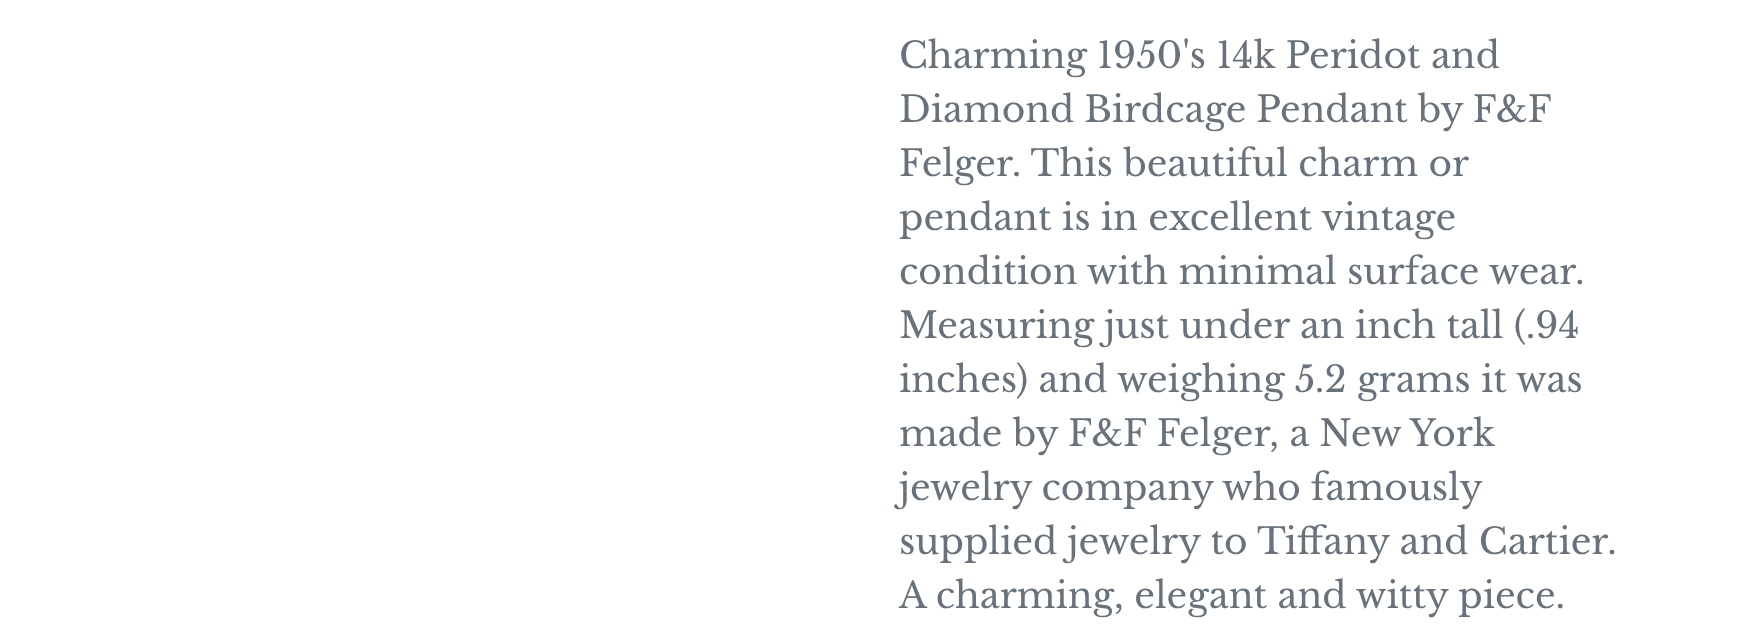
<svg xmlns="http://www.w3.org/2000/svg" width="1737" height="642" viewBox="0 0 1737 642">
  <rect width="100%" height="100%" fill="rgb(255,255,255)"/>
  <g font-family="Libre Baskerville" font-size="36" fill="rgb(105,114,123)">
    <text>
      <tspan x="899" y="68">Charming 1950's 14k Peridot and</tspan>
      <tspan x="899" y="122" word-spacing="-0.5">Diamond Birdcage Pendant by F&amp;F</tspan>
      <tspan x="899" y="176">Felger. This beautiful charm or</tspan>
      <tspan x="899" y="230">pendant is in excellent vintage</tspan>
      <tspan x="899" y="284">condition with minimal surface wear.</tspan>
      <tspan x="899" y="338">Measuring just under an inch tall (.94</tspan>
      <tspan x="899" y="392">inches) and weighing 5.2 grams it was</tspan>
      <tspan x="899" y="446">made by F&amp;F Felger, a New York</tspan>
      <tspan x="899" y="500" word-spacing="-0.5">jewelry company who famously</tspan>
      <tspan x="899" y="554">supplied jewelry to Tiffany and Cartier.</tspan>
      <tspan x="899" y="608">A charming, elegant and witty piece.</tspan>
    </text>
  </g>
</svg>
